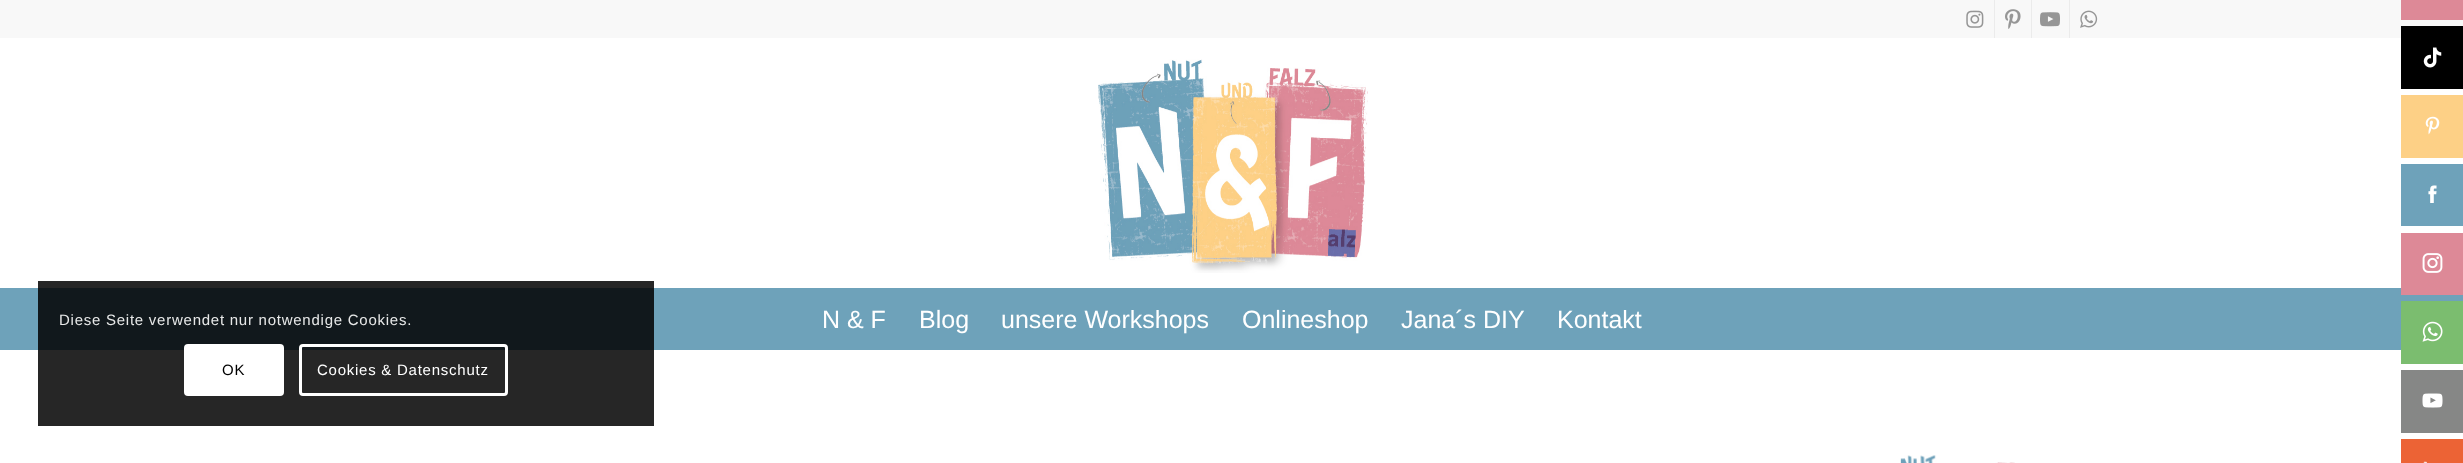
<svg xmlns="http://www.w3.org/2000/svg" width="2463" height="463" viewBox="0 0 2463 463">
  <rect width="100%" height="100%" fill="rgb(255,255,255)"/>
  <rect x="38" y="281" width="616" height="145" fill="rgb(38,38,38)"/>
  <rect x="0" y="288" width="2463" height="62" fill="rgb(110,162,186)"/>
  <rect x="38" y="288" width="616" height="62" fill="rgb(17,24,28)"/>
  <text x="59" y="325" font-family="Liberation Sans" font-size="15" letter-spacing="0.75" fill="rgb(231,232,232)">Diese Seite verwendet nur notwendige Cookies.</text>
  <rect x="184" y="344" width="100" height="52" rx="4" fill="rgb(255,255,255)"/>
  <text x="222" y="375" font-family="Liberation Sans" font-size="15" letter-spacing="0.75" fill="rgb(0,0,0)">OK</text>
  <rect x="300.5" y="345.5" width="206" height="49" rx="2.5" fill="none" stroke="rgb(255,255,255)" stroke-width="3"/>
  <text x="317" y="375" font-family="Liberation Sans" font-size="15" letter-spacing="0.75" fill="rgb(255,255,255)">Cookies &amp; Datenschutz</text>
  <rect x="0" y="0" width="2463" height="38" fill="rgb(248,248,248)"/>
  <rect x="1994" y="0" width="1" height="38" fill="rgb(235,235,235)"/>
  <image x="1966" y="10" width="18" height="18" href="pic1.png"/>
  <rect x="2031" y="0" width="1" height="38" fill="rgb(235,235,235)"/>
  <image x="2005" y="9" width="16" height="20" href="pic2.png"/>
  <rect x="2069" y="0" width="1" height="38" fill="rgb(235,235,235)"/>
  <image x="2040" y="12" width="20" height="15" href="pic3.png"/>
  <image x="2080" y="10" width="18" height="18" href="pic4.png"/>
  <image x="1098" y="59" width="270" height="214" href="pic5.png"/>
  <g font-family="Liberation Sans" font-size="25" fill="rgb(255,255,255)">
    <text x="822" y="328">N &amp; F</text>
    <text x="919" y="328">Blog</text>
    <text x="1001" y="328">unsere Workshops</text>
    <text x="1242" y="328">Onlineshop</text>
    <text x="1401" y="328">Jana´s DIY</text>
    <text x="1557" y="328">Kontakt</text>
  </g>
  <image x="1900" y="455" width="115" height="8" href="pic6.png"/>
  <rect x="2401" y="0" width="62" height="20" fill="rgb(221,137,151)"/>
  <rect x="2401" y="26" width="62" height="63" fill="rgb(0,0,0)"/>
  <image x="2423" y="47" width="19" height="21" href="pic7.png"/>
  <rect x="2401" y="95" width="62" height="63" fill="rgb(253,208,134)"/>
  <image x="2425" y="116" width="15" height="19" href="pic8.png"/>
  <rect x="2401" y="164" width="62" height="62" fill="rgb(110,162,186)"/>
  <image x="2428" y="185" width="9" height="18" href="pic9.png"/>
  <rect x="2401" y="233" width="62" height="62" fill="rgb(221,137,151)"/>
  <image x="2422" y="253" width="21" height="20" href="pic10.png"/>
  <rect x="2401" y="301" width="62" height="63" fill="rgb(123,189,111)"/>
  <image x="2422" y="321" width="21" height="21" href="pic11.png"/>
  <rect x="2401" y="370" width="62" height="63" fill="rgb(134,135,134)"/>
  <image x="2422" y="393" width="21" height="15" href="pic12.png"/>
  <rect x="2401" y="439" width="62" height="24" fill="rgb(236,99,53)"/>
  <image x="2423" y="461" width="4" height="2" href="pic13.png"/>
</svg>
